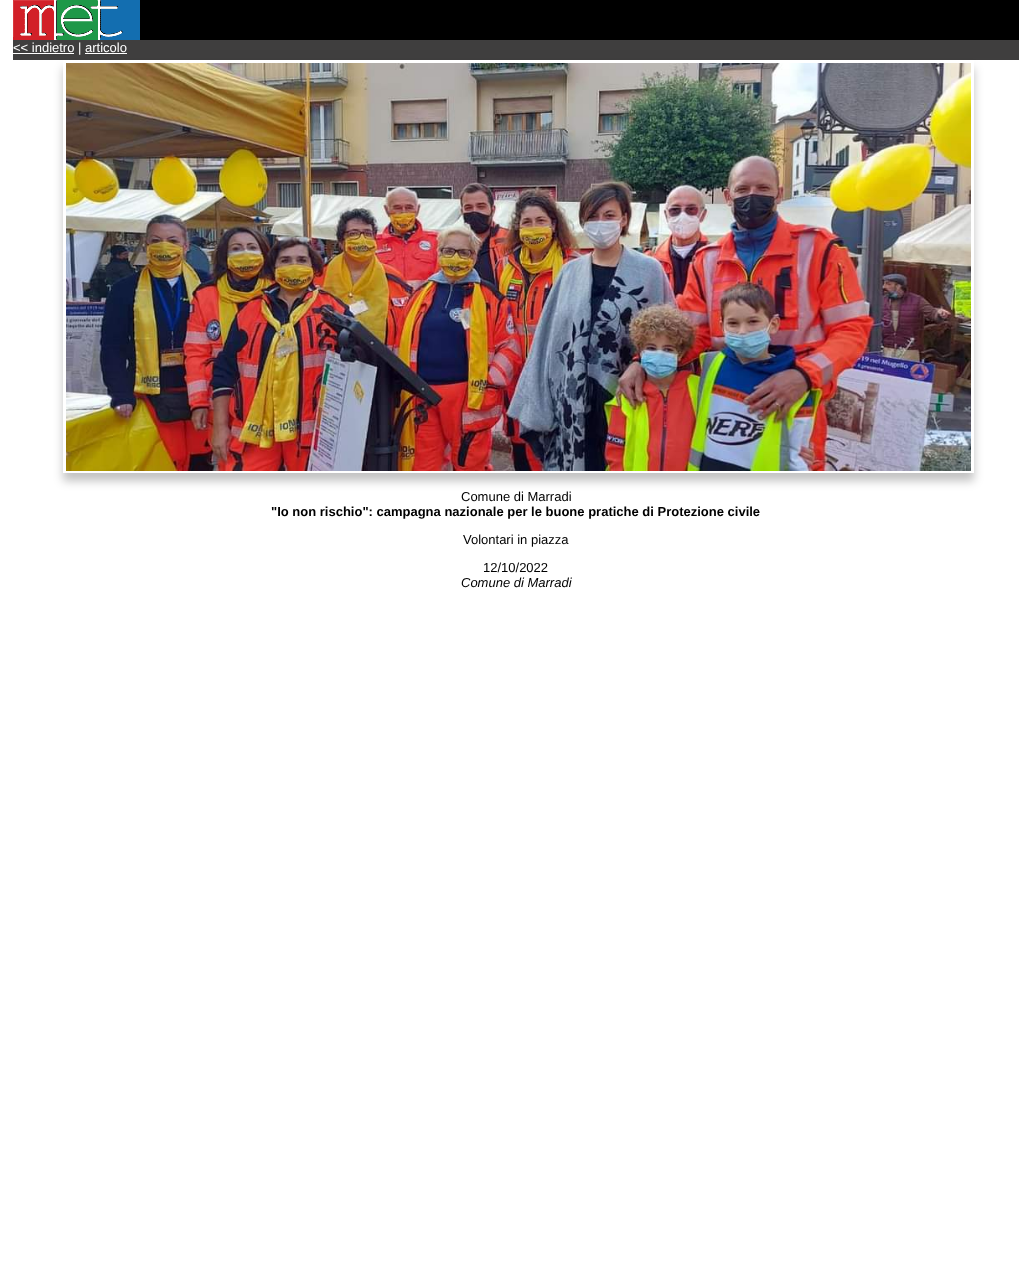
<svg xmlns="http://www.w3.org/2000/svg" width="1019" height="1277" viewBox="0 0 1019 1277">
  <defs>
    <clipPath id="clip1"><path d="M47 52H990V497H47ZM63 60H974V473H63Z" clip-rule="evenodd"/></clipPath>
  </defs>
  <rect width="100%" height="100%" fill="rgb(255,255,255)"/>
  <rect x="140" y="0" width="879" height="40" fill="rgb(0,0,0)"/>
  <image x="13" y="0" width="127" height="40" href="pic1.png"/>
  <rect x="13" y="40" width="1006" height="20" fill="rgb(63,62,62)"/>
  <rect x="13" y="53" width="61" height="1" fill="rgb(255,255,255)"/>
  <text x="13" y="52" font-family="Liberation Sans" font-size="13" fill="rgb(255,255,255)">&lt;&lt; indietro | articolo</text>
  <rect x="85" y="53" width="42" height="1" fill="rgb(255,255,255)"/>
  <g clip-path="url(#clip1)">
    <rect x="63" y="68" width="911" height="413" fill="rgba(0,0,0,0.24)" filter="blur(5px)"/>
  </g>
  <image x="66" y="63" width="905" height="408" href="pic2.png"/>
  <text x="461" y="501" font-family="Liberation Sans" font-size="13" fill="rgb(0,0,0)">Comune di Marradi</text>
  <text x="271" y="516" font-family="Liberation Sans" font-size="13" font-weight="bold" fill="rgb(0,0,0)">"Io non rischio": campagna nazionale per le buone pratiche di Protezione civile</text>
  <g font-family="Liberation Sans" font-size="13" fill="rgb(0,0,0)">
    <text x="463" y="544">Volontari in piazza</text>
    <text x="483" y="572">12/10/2022</text>
  </g>
  <text x="461" y="587" font-family="Liberation Sans" font-size="13" font-style="italic" fill="rgb(0,0,0)">Comune di Marradi</text>
</svg>
